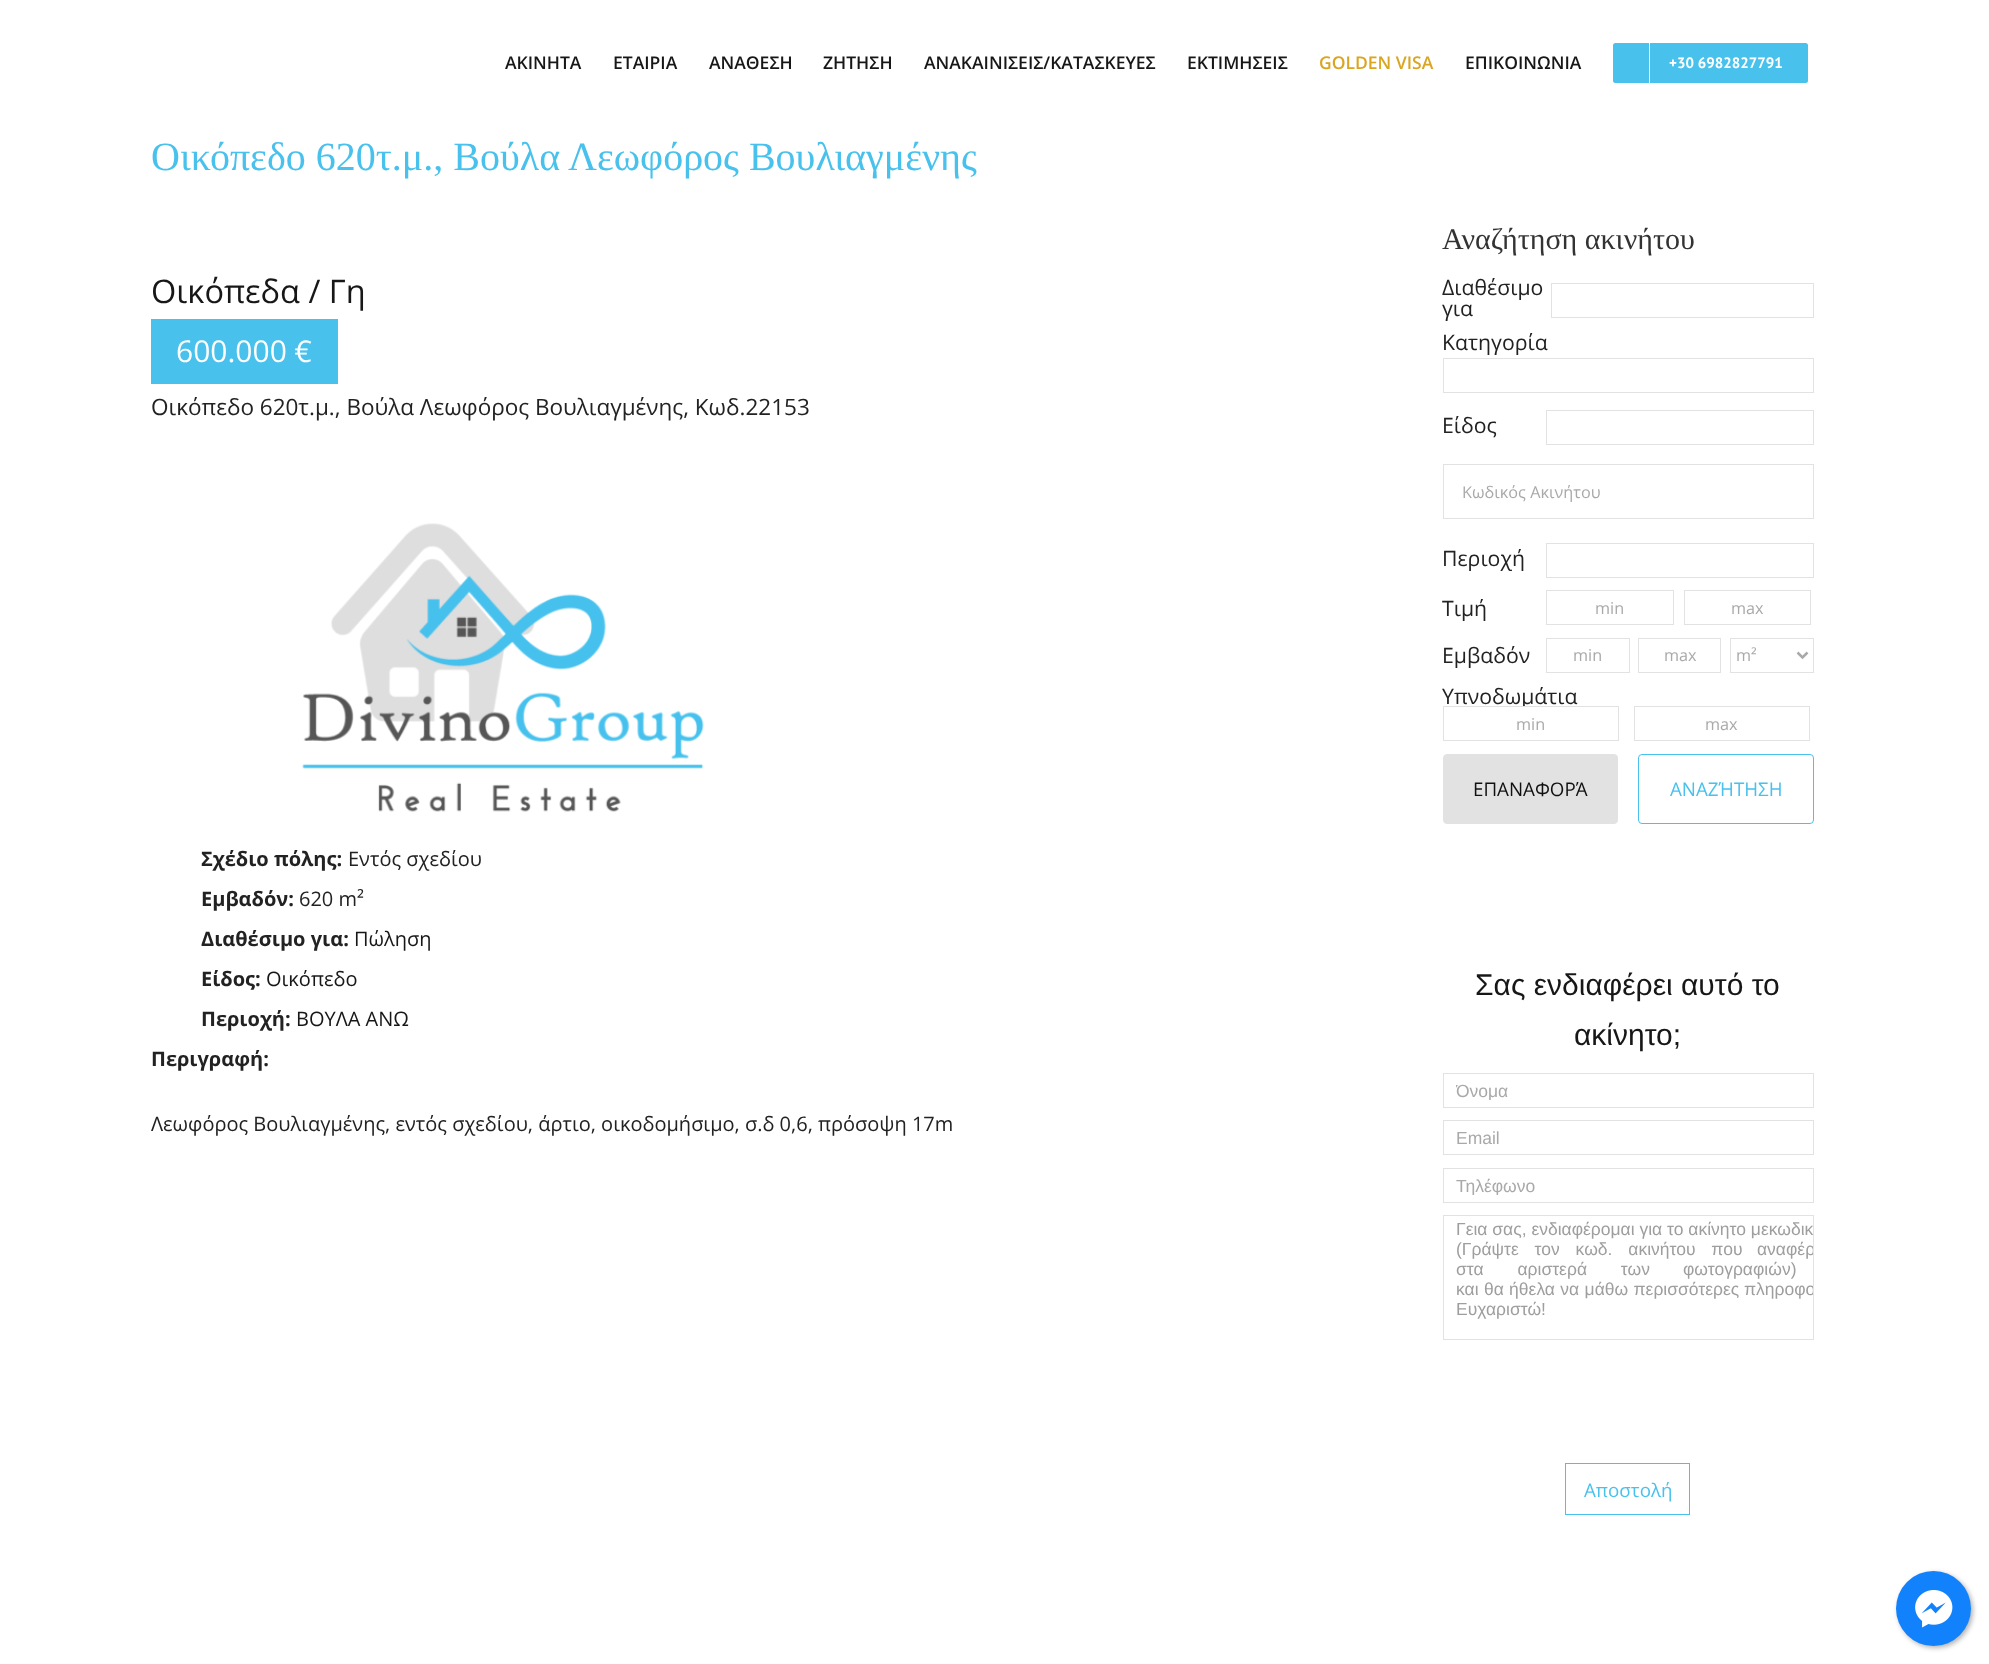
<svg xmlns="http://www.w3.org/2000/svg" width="1989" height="1664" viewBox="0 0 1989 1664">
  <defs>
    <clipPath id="clip1"><rect x="1456" y="1080" width="344" height="20"/></clipPath>
    <clipPath id="clip2"><rect x="1456" y="1175" width="344" height="20"/></clipPath>
    <clipPath id="clip3"><rect x="1444" y="1216" width="369" height="123"/></clipPath>
  </defs>
  <rect width="100%" height="100%" fill="rgb(255,255,255)"/>
  <g font-family="Open Sans" font-size="17.5" font-weight="600" fill="rgb(23,23,23)">
    <text x="505" y="69">ΑΚΙΝΗΤΑ</text>
    <text x="613" y="69">ΕΤΑΙΡΙΑ</text>
    <text x="709" y="69">ΑΝΑΘΕΣΗ</text>
    <text x="823" y="69">ΖΗΤΗΣΗ</text>
    <text x="924" y="69">ΑΝΑΚΑΙΝΙΣΕΙΣ/ΚΑΤΑΣΚΕΥΕΣ</text>
    <text x="1187" y="69">ΕΚΤΙΜΗΣΕΙΣ</text>
  </g>
  <text x="1319" y="69" font-family="Open Sans" font-size="17.5" font-weight="600" fill="rgb(218,165,32)">GOLDEN VISA</text>
  <text x="1465" y="69" font-family="Open Sans" font-size="17.5" font-weight="600" fill="rgb(23,23,23)">ΕΠΙΚΟΙΝΩΝΙΑ</text>
  <rect x="1613" y="43" width="195" height="40" rx="2.5" fill="rgb(72,193,237)"/>
  <rect x="1649" y="43" width="1" height="40" fill="rgb(255,255,255)"/>
  <text x="1669" y="68" font-family="PT Sans" font-size="15" font-weight="bold" fill="rgb(255,255,255)">+30 6982827791</text>
  <text x="151" y="170" font-family="Liberation Serif" font-size="40" fill="rgb(72,193,237)">Οικόπεδο 620τ.μ., Βούλα Λεωφόρος Βουλιαγμένης</text>
  <text x="151" y="303" font-family="Open Sans" font-size="32.5" fill="rgb(23,23,23)">Οικόπεδα / Γη</text>
  <rect x="151" y="319" width="187" height="65" fill="rgb(72,193,237)"/>
  <text x="176" y="362" font-family="Open Sans" font-size="30" fill="rgb(255,255,255)">600.000 €</text>
  <text x="151" y="415" font-family="Open Sans" font-size="22.5" fill="rgb(34,34,34)">Οικόπεδο 620τ.μ., Βούλα Λεωφόρος Βουλιαγμένης, Κωδ.22153</text>
  <image x="302" y="523" width="402" height="289" href="pic1.png"/>
  <text x="201" y="866" font-family="Open Sans" font-size="20" font-weight="bold" fill="rgb(34,34,34)">Σχέδιο πόλης:</text>
  <text x="348" y="866" font-family="Open Sans" font-size="20" fill="rgb(34,34,34)">Εντός σχεδίου</text>
  <text x="201" y="906" font-family="Open Sans" font-size="20" font-weight="bold" fill="rgb(34,34,34)">Εμβαδόν:</text>
  <text x="299" y="906" font-family="Open Sans" font-size="20" fill="rgb(34,34,34)">620 m²</text>
  <text x="201" y="946" font-family="Open Sans" font-size="20" font-weight="bold" fill="rgb(34,34,34)">Διαθέσιμο για:</text>
  <text x="354" y="946" font-family="Open Sans" font-size="20" fill="rgb(23,23,23)">Πώληση</text>
  <text x="201" y="986" font-family="Open Sans" font-size="20" font-weight="bold" fill="rgb(34,34,34)">Είδος:</text>
  <text x="266" y="986" font-family="Open Sans" font-size="20" fill="rgb(23,23,23)">Οικόπεδο</text>
  <text x="201" y="1026" font-family="Open Sans" font-size="20" font-weight="bold" fill="rgb(34,34,34)">Περιοχή:</text>
  <text x="296" y="1026" font-family="Open Sans" font-size="20" fill="rgb(23,23,23)">ΒΟΥΛΑ ΑΝΩ</text>
  <text x="151" y="1066" font-family="Open Sans" font-size="20" font-weight="bold" fill="rgb(34,34,34)">Περιγραφή:</text>
  <text x="151" y="1131" font-family="Open Sans" font-size="20" fill="rgb(34,34,34)">Λεωφόρος Βουλιαγμένης, εντός σχεδίου, άρτιο, οικοδομήσιμο, σ.δ 0,6, πρόσοψη 17m</text>
  <text x="1442" y="249" font-family="Liberation Serif" font-size="30" fill="rgb(51,51,51)">Αναζήτηση ακινήτου</text>
  <g font-family="Open Sans" font-size="21.25" fill="rgb(34,34,34)">
    <text>
      <tspan x="1442" y="295">Διαθέσιμο</tspan>
      <tspan x="1442" y="316">για</tspan>
    </text>
  </g>
  <rect x="1551.5" y="283.5" width="262" height="34" fill="none" stroke="rgb(226,226,226)"/>
  <text x="1442" y="350" font-family="Open Sans" font-size="21.25" fill="rgb(34,34,34)">Κατηγορία</text>
  <rect x="1443.5" y="358.5" width="370" height="34" fill="none" stroke="rgb(226,226,226)"/>
  <text x="1442" y="433" font-family="Open Sans" font-size="21.25" fill="rgb(34,34,34)">Είδος</text>
  <rect x="1546.5" y="410.5" width="267" height="34" fill="none" stroke="rgb(226,226,226)"/>
  <rect x="1443.5" y="464.5" width="370" height="54" fill="none" stroke="rgb(226,226,226)"/>
  <text x="1462" y="498" font-family="Open Sans" font-size="16.25" fill="rgb(170,169,169)">Κωδικός Ακινήτου</text>
  <text x="1442" y="566" font-family="Open Sans" font-size="21.25" fill="rgb(34,34,34)">Περιοχή</text>
  <rect x="1546.5" y="543.5" width="267" height="34" fill="none" stroke="rgb(226,226,226)"/>
  <text x="1442" y="616" font-family="Open Sans" font-size="21.25" fill="rgb(34,34,34)">Τιμή</text>
  <rect x="1546.5" y="590.5" width="127" height="34" fill="none" stroke="rgb(226,226,226)"/>
  <text x="1595" y="614" font-family="Open Sans" font-size="16.25" fill="rgb(170,169,169)">min</text>
  <rect x="1684.5" y="590.5" width="126" height="34" fill="none" stroke="rgb(226,226,226)"/>
  <text x="1731" y="614" font-family="Open Sans" font-size="16.25" fill="rgb(170,169,169)">max</text>
  <text x="1442" y="663" font-family="Open Sans" font-size="21.25" fill="rgb(34,34,34)">Εμβαδόν</text>
  <rect x="1546.5" y="638.5" width="83" height="34" fill="none" stroke="rgb(226,226,226)"/>
  <text x="1573" y="661" font-family="Open Sans" font-size="16.25" fill="rgb(170,169,169)">min</text>
  <rect x="1638.5" y="638.5" width="82" height="34" fill="none" stroke="rgb(226,226,226)"/>
  <text x="1664" y="661" font-family="Open Sans" font-size="16.25" fill="rgb(170,169,169)">max</text>
  <rect x="1730.5" y="638.5" width="83" height="34" fill="none" stroke="rgb(226,226,226)"/>
  <path d="M1797.5 652.5L1802.5 657.5L1807.5 652.5" fill="none" stroke="rgb(170,169,169)" stroke-width="2.5"/>
  <text x="1736" y="661" font-family="Open Sans" font-size="16.25" fill="rgb(170,169,169)">m²</text>
  <text x="1442" y="704" font-family="Open Sans" font-size="21.25" fill="rgb(34,34,34)">Υπνοδωμάτια</text>
  <rect x="1522" y="707" width="3" height="3" fill="rgb(255,255,255)"/>
  <rect x="1443.5" y="706.5" width="175" height="34" fill="none" stroke="rgb(226,226,226)"/>
  <text x="1516" y="730" font-family="Open Sans" font-size="16.25" fill="rgb(170,169,169)">min</text>
  <rect x="1634.5" y="706.5" width="175" height="34" fill="none" stroke="rgb(226,226,226)"/>
  <text x="1705" y="730" font-family="Open Sans" font-size="16.25" fill="rgb(170,169,169)">max</text>
  <rect x="1443.5" y="754.5" width="174" height="69" rx="3.5" fill="rgb(226,226,226)" stroke="rgb(226,226,226)"/>
  <text x="1473" y="796" font-family="Open Sans" font-size="18.75" fill="rgb(17,17,17)">ΕΠΑΝΑΦΟΡΆ</text>
  <rect x="1638.5" y="754.5" width="175" height="69" rx="3.5" fill="none" stroke="rgb(72,193,237)"/>
  <text x="1670" y="796" font-family="Open Sans" font-size="18.75" fill="rgb(72,193,237)">ΑΝΑΖΉΤΗΣΗ</text>
  <g font-family="Liberation Sans" font-size="30" fill="rgb(23,23,23)">
    <text x="1475" y="995">Σας ενδιαφέρει αυτό το</text>
    <text x="1574" y="1045">ακίνητο;</text>
  </g>
  <rect x="1443.5" y="1073.5" width="370" height="34" fill="none" stroke="rgb(226,226,226)"/>
  <g clip-path="url(#clip1)">
    <text x="1456" y="1097" font-family="Liberation Sans" font-size="17.5" fill="rgb(170,169,169)">Όνομα</text>
  </g>
  <rect x="1443.5" y="1120.5" width="370" height="34" fill="none" stroke="rgb(226,226,226)"/>
  <text x="1456" y="1144" font-family="Liberation Sans" font-size="17.5" fill="rgb(170,169,169)">Email</text>
  <rect x="1443.5" y="1168.5" width="370" height="34" fill="none" stroke="rgb(226,226,226)"/>
  <g clip-path="url(#clip2)">
    <text x="1456" y="1192" font-family="Liberation Sans" font-size="17.5" fill="rgb(170,169,169)">Τηλέφωνο</text>
  </g>
  <rect x="1443.5" y="1215.5" width="370" height="124" fill="none" stroke="rgb(226,226,226)"/>
  <g font-family="Liberation Sans" font-size="17.5" fill="rgb(158,158,158)">
    <text>
      <tspan x="1456" y="1235">Γεια σας, ενδιαφέρομαι για το ακίνητο μεκωδικ</tspan>
      <tspan x="1456" y="1255" word-spacing="11">(Γράψτε τον κωδ. ακινήτου που</tspan>
    </text>
  </g>
  <g clip-path="url(#clip3)">
    <text x="1757" y="1255" font-family="Liberation Sans" font-size="17.5" fill="rgb(158,158,158)">αναφέρ</text>
  </g>
  <g font-family="Liberation Sans" font-size="17.5" fill="rgb(158,158,158)">
    <text x="1456" y="1275" word-spacing="29">στα αριστερά των</text>
    <text x="1683" y="1275">φωτογραφιών)</text>
    <text x="1456" y="1295" word-spacing="0.5">και θα ήθελα να μάθω περισσότερες</text>
  </g>
  <g clip-path="url(#clip3)">
    <text x="1744" y="1295" font-family="Liberation Sans" font-size="17.5" fill="rgb(158,158,158)">πληροφο</text>
  </g>
  <text x="1456" y="1315" font-family="Liberation Sans" font-size="17.5" fill="rgb(158,158,158)">Ευχαριστώ!</text>
  <rect x="1565.5" y="1463.5" width="124" height="51" fill="none" stroke="rgb(72,193,237)"/>
  <text x="1584" y="1497" font-family="Open Sans" font-size="18.75" fill="rgb(72,193,237)">Αποστολή</text>
  <rect x="1898" y="1573" width="75" height="75" rx="37.5" fill="rgba(0,0,0,0.3)" filter="blur(2.5px)"/>
  <circle cx="1933.5" cy="1608.5" r="37.5" fill="rgb(17,130,252)"/>
  <image x="1915" y="1590" width="38" height="38" href="pic2.png"/>
</svg>
